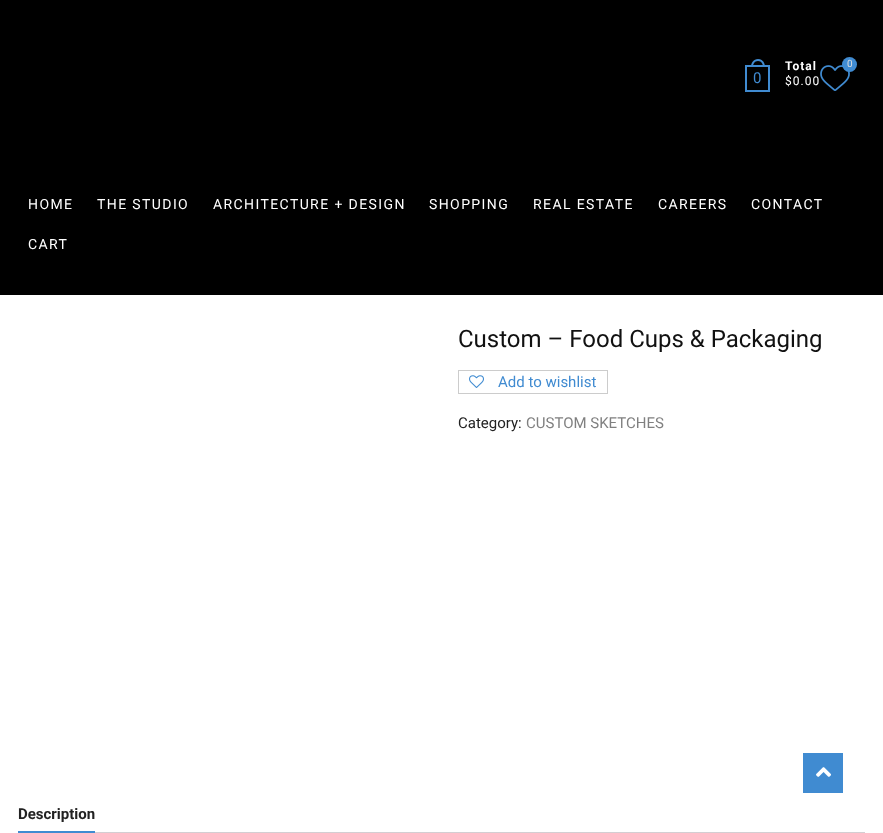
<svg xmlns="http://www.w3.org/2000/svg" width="883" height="833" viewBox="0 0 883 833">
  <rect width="100%" height="100%" fill="rgb(255,255,255)"/>
  <rect x="0" y="0" width="883" height="295" fill="rgb(0,0,0)"/>
  <rect x="746" y="66" width="23" height="25" fill="none" stroke="rgb(64,139,209)" stroke-width="2"/>
  <path d="M758 59C762.5 59 765 63 765 67H751C751 63 753.5 59 758 59ZM758 61C761.5 61 763 64 763 67H753C753 64 754.5 61 758 61Z" fill="rgb(64,139,209)" fill-rule="evenodd"/>
  <text x="753" y="83" font-family="Roboto" font-size="15" fill="rgb(64,139,209)">0</text>
  <text x="785" y="70" font-family="Roboto" font-size="12" font-weight="bold" letter-spacing="1" fill="rgb(255,255,255)">Total</text>
  <text x="785" y="85" font-family="Roboto" font-size="12" letter-spacing="1" fill="rgb(255,255,255)">$0.00</text>
  <image x="820" y="65" width="30" height="26" href="pic1.png"/>
  <circle cx="849.5" cy="64.5" r="7.5" fill="rgb(64,139,209)"/>
  <text x="847" y="67" font-family="Roboto" font-size="10" fill="rgb(221,221,221)">0</text>
  <g font-family="Roboto" font-size="14" letter-spacing="1.4" fill="rgb(255,255,255)">
    <text x="28" y="209">HOME</text>
    <text x="97" y="209">THE STUDIO</text>
    <text x="213" y="209">ARCHITECTURE + DESIGN</text>
    <text x="429" y="209">SHOPPING</text>
    <text x="533" y="209">REAL ESTATE</text>
    <text x="658" y="209">CAREERS</text>
    <text x="751" y="209">CONTACT</text>
    <text x="28" y="249">CART</text>
  </g>
  <text x="458" y="347" font-family="Roboto" font-size="24" fill="rgb(17,17,17)">Custom – Food Cups &amp; Packaging</text>
  <rect x="458.5" y="370.5" width="149" height="23" fill="none" stroke="rgb(204,204,204)"/>
  <image x="469" y="375" width="15" height="13" href="pic2.png"/>
  <text x="498" y="387" font-family="Roboto" font-size="15" fill="rgb(64,139,209)">Add to wishlist</text>
  <text x="458" y="428" font-family="Roboto" font-size="15" fill="rgb(34,34,34)">Category:</text>
  <text x="526" y="428" font-family="Roboto" font-size="15" fill="rgb(128,128,128)">CUSTOM SKETCHES</text>
  <rect x="18" y="831" width="77" height="2" fill="rgb(64,139,209)"/>
  <text x="18" y="819" font-family="Roboto" font-size="15" font-weight="bold" fill="rgb(34,34,34)">Description</text>
  <rect x="95" y="832" width="770" height="1" fill="rgb(211,206,210)"/>
  <rect x="803" y="753" width="40" height="40" fill="rgb(64,139,209)"/>
  <image x="816" y="767" width="15" height="10" href="pic3.png"/>
</svg>
